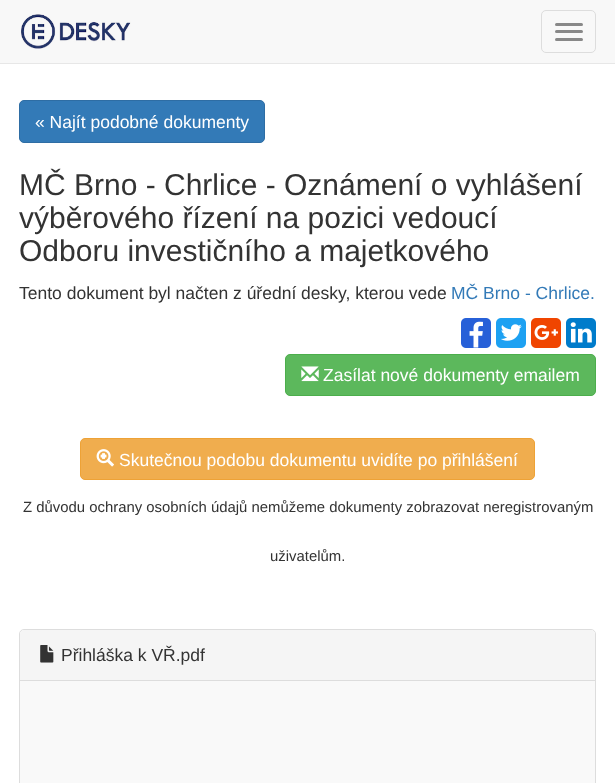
<svg xmlns="http://www.w3.org/2000/svg" width="615" height="783" viewBox="0 0 615 783">
  <rect width="100%" height="100%" fill="rgb(255,255,255)"/>
  <rect x="0" y="0" width="615" height="63" fill="rgb(248,248,248)"/>
  <rect x="0" y="63" width="615" height="1" fill="rgb(231,231,231)"/>
  <image x="21" y="14" width="110" height="35" href="pic1.png"/>
  <rect x="541.5" y="10.5" width="54" height="42" rx="4.5" fill="none" stroke="rgb(221,221,221)"/>
  <rect x="555" y="23" width="28" height="3" rx="1.5" fill="rgb(136,136,136)"/>
  <rect x="555" y="30" width="28" height="3" rx="1.5" fill="rgb(136,136,136)"/>
  <rect x="555" y="38" width="28" height="3" rx="1.5" fill="rgb(136,136,136)"/>
  <rect x="19.5" y="100.5" width="245" height="42" rx="4.5" fill="rgb(51,122,183)" stroke="rgb(46,109,164)"/>
  <text x="35" y="128" font-family="Liberation Sans" font-size="17.5" fill="rgb(255,255,255)">« Najít podobné dokumenty</text>
  <g font-family="Liberation Sans" font-size="30" fill="rgb(51,51,51)">
    <text>
      <tspan x="19" y="195">MČ Brno - Chrlice - Oznámení o vyhlášení</tspan>
      <tspan x="19" y="228">výběrového řízení na pozici vedoucí</tspan>
      <tspan x="19" y="261">Odboru investičního a majetkového</tspan>
    </text>
  </g>
  <text x="19" y="299" font-family="Liberation Sans" font-size="17.5" fill="rgb(51,51,51)">Tento dokument byl načten z úřední desky, kterou vede</text>
  <text x="451" y="299" font-family="Liberation Sans" font-size="17.5" fill="rgb(51,122,183)">MČ Brno - Chrlice.</text>
  <image x="461" y="318" width="30" height="30" href="pic2.png"/>
  <image x="496" y="318" width="30" height="30" href="pic3.png"/>
  <image x="531" y="318" width="30" height="30" href="pic4.png"/>
  <image x="566" y="318" width="30" height="30" href="pic5.png"/>
  <rect x="285.5" y="354.5" width="310" height="41" rx="4.5" fill="rgb(92,184,92)" stroke="rgb(76,174,76)"/>
  <image x="301" y="366" width="18" height="16" href="pic6.png"/>
  <text x="323" y="381" font-family="Liberation Sans" font-size="17.5" fill="rgb(255,255,255)">Zasílat nové dokumenty emailem</text>
  <rect x="80.5" y="438.5" width="454" height="41" rx="4.5" fill="rgb(240,173,78)" stroke="rgb(238,162,54)"/>
  <image x="96" y="449" width="18" height="18" href="pic7.png"/>
  <text x="119" y="466" font-family="Liberation Sans" font-size="17.5" fill="rgb(255,255,255)">Skutečnou podobu dokumentu uvidíte po přihlášení</text>
  <g font-family="Liberation Sans" font-size="14.9" fill="rgb(51,51,51)">
    <text x="23" y="512">Z důvodu ochrany osobních údajů nemůžeme dokumenty zobrazovat neregistrovaným</text>
    <text x="270" y="561">uživatelům.</text>
  </g>
  <rect x="19.5" y="629.5" width="576" height="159" rx="4.5" fill="none" stroke="rgb(221,221,221)"/>
  <path d="M24 630H591C593 630 595 632 595 634V681H20V634C20 632 22 630 24 630Z" fill="rgb(245,245,245)"/>
  <rect x="20" y="680" width="575" height="1" fill="rgb(221,221,221)"/>
  <image x="40" y="645" width="14" height="18" href="pic8.png"/>
  <text x="61" y="661" font-family="Liberation Sans" font-size="17.5" fill="rgb(51,51,51)">Přihláška k VŘ.pdf</text>
  <rect x="20" y="681" width="575" height="102" fill="rgb(249,249,249)"/>
</svg>
